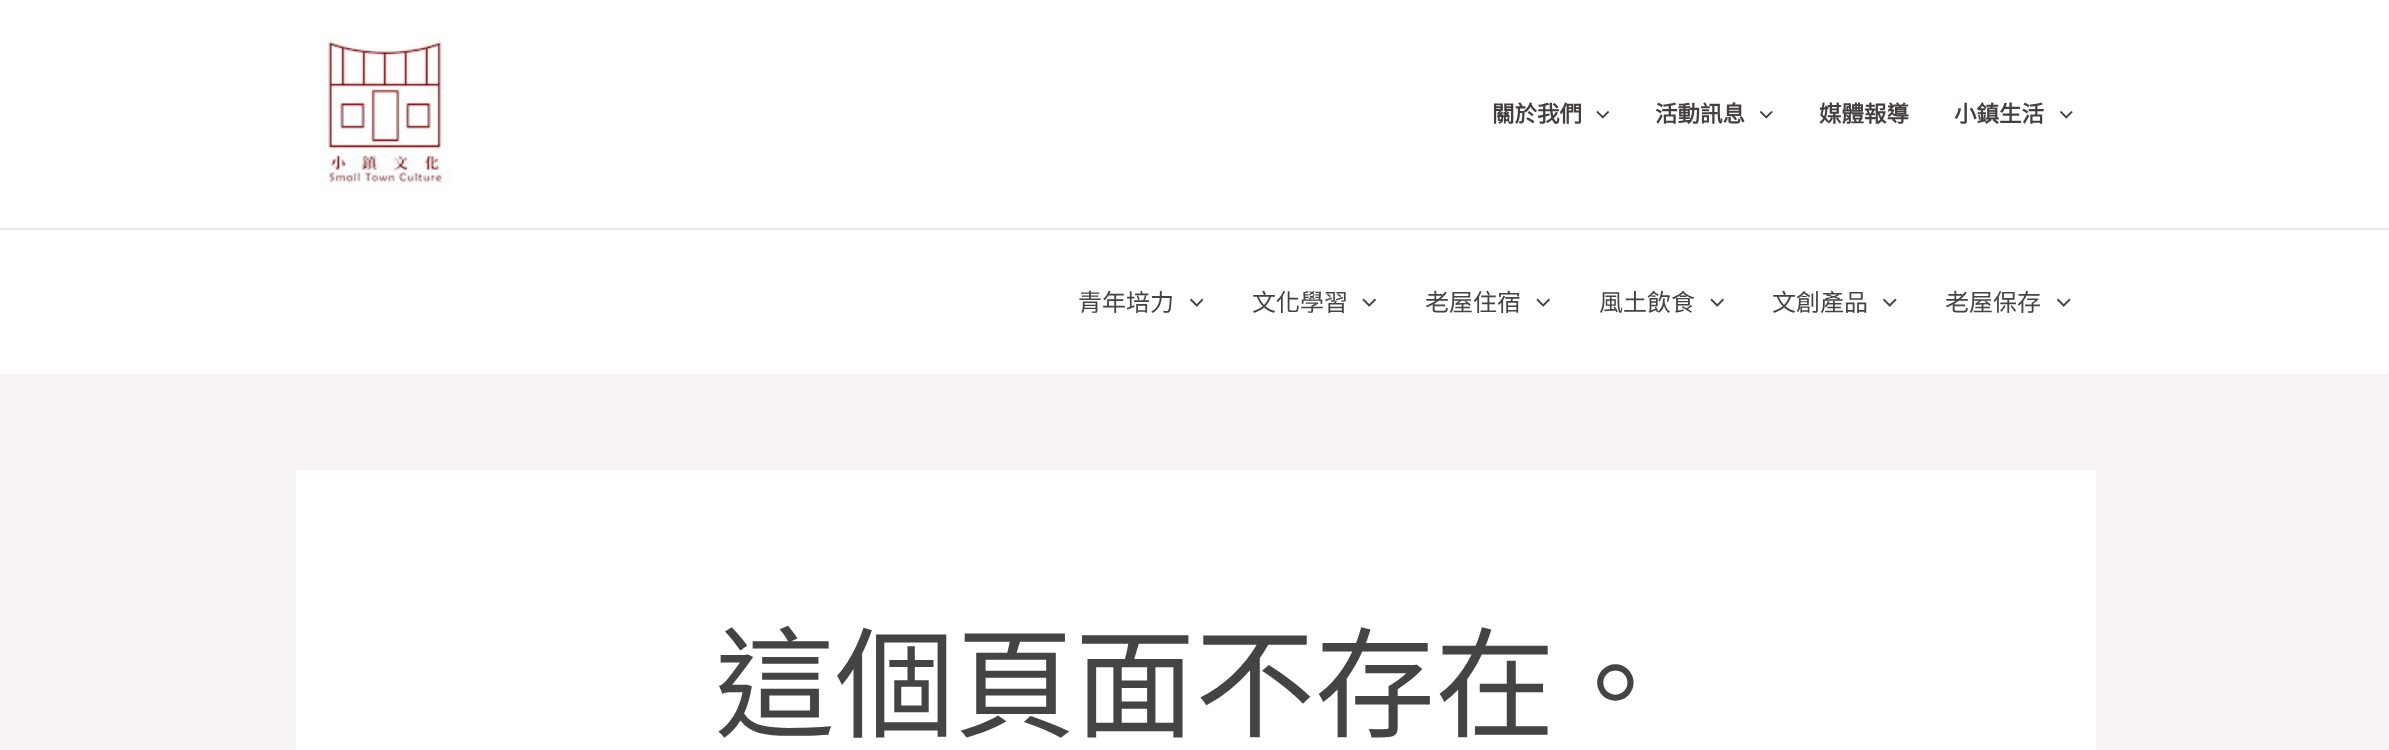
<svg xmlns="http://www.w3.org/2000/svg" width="2389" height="750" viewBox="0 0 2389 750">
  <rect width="100%" height="100%" fill="rgb(247,243,245)"/>
  <rect x="0" y="0" width="2389" height="228" fill="rgb(255,255,255)"/>
  <rect x="0" y="228" width="2389" height="2" fill="rgb(234,234,234)"/>
  <image x="320" y="36" width="131" height="156" href="pic1.png"/>
  <text x="1492" y="122" font-family="Noto Sans CJK TC" font-size="22.5" font-weight="bold" fill="rgb(69,62,62)">關於我們</text>
  <image x="1596" y="111" width="14" height="8" href="pic2.png"/>
  <text x="1655" y="122" font-family="Noto Sans CJK TC" font-size="22.5" font-weight="bold" fill="rgb(69,62,62)">活動訊息</text>
  <image x="1760" y="111" width="13" height="8" href="pic3.png"/>
  <g font-family="Noto Sans CJK TC" font-size="22.5" font-weight="bold" fill="rgb(69,62,62)">
    <text x="1819" y="122">媒體報導</text>
    <text x="1954" y="122">小鎮生活</text>
  </g>
  <image x="2060" y="111" width="13" height="8" href="pic3.png"/>
  <rect x="0" y="230" width="2389" height="144" fill="rgb(255,255,255)"/>
  <text x="1078" y="311" font-family="Noto Sans CJK TC" font-size="24" fill="rgb(68,68,68)">青年培力</text>
  <image x="1190" y="298" width="13" height="9" href="pic4.png"/>
  <text x="1252" y="311" font-family="Noto Sans CJK TC" font-size="24" fill="rgb(68,68,68)">文化學習</text>
  <image x="1362" y="298" width="14" height="9" href="pic5.png"/>
  <text x="1425" y="311" font-family="Noto Sans CJK TC" font-size="24" fill="rgb(68,68,68)">老屋住宿</text>
  <image x="1536" y="298" width="14" height="9" href="pic5.png"/>
  <text x="1599" y="311" font-family="Noto Sans CJK TC" font-size="24" fill="rgb(68,68,68)">風土飲食</text>
  <image x="1710" y="298" width="14" height="9" href="pic5.png"/>
  <text x="1772" y="311" font-family="Noto Sans CJK TC" font-size="24" fill="rgb(68,68,68)">文創產品</text>
  <image x="1883" y="298" width="14" height="9" href="pic6.png"/>
  <text x="1945" y="311" font-family="Noto Sans CJK TC" font-size="24" fill="rgb(68,68,68)">老屋保存</text>
  <image x="2057" y="298" width="14" height="9" href="pic6.png"/>
  <rect x="296" y="470" width="1800" height="280" fill="rgb(255,255,255)"/>
  <text x="715" y="728" font-family="Noto Sans CJK TC" font-size="120" fill="rgb(68,68,68)">這個頁面不存在。</text>
</svg>
